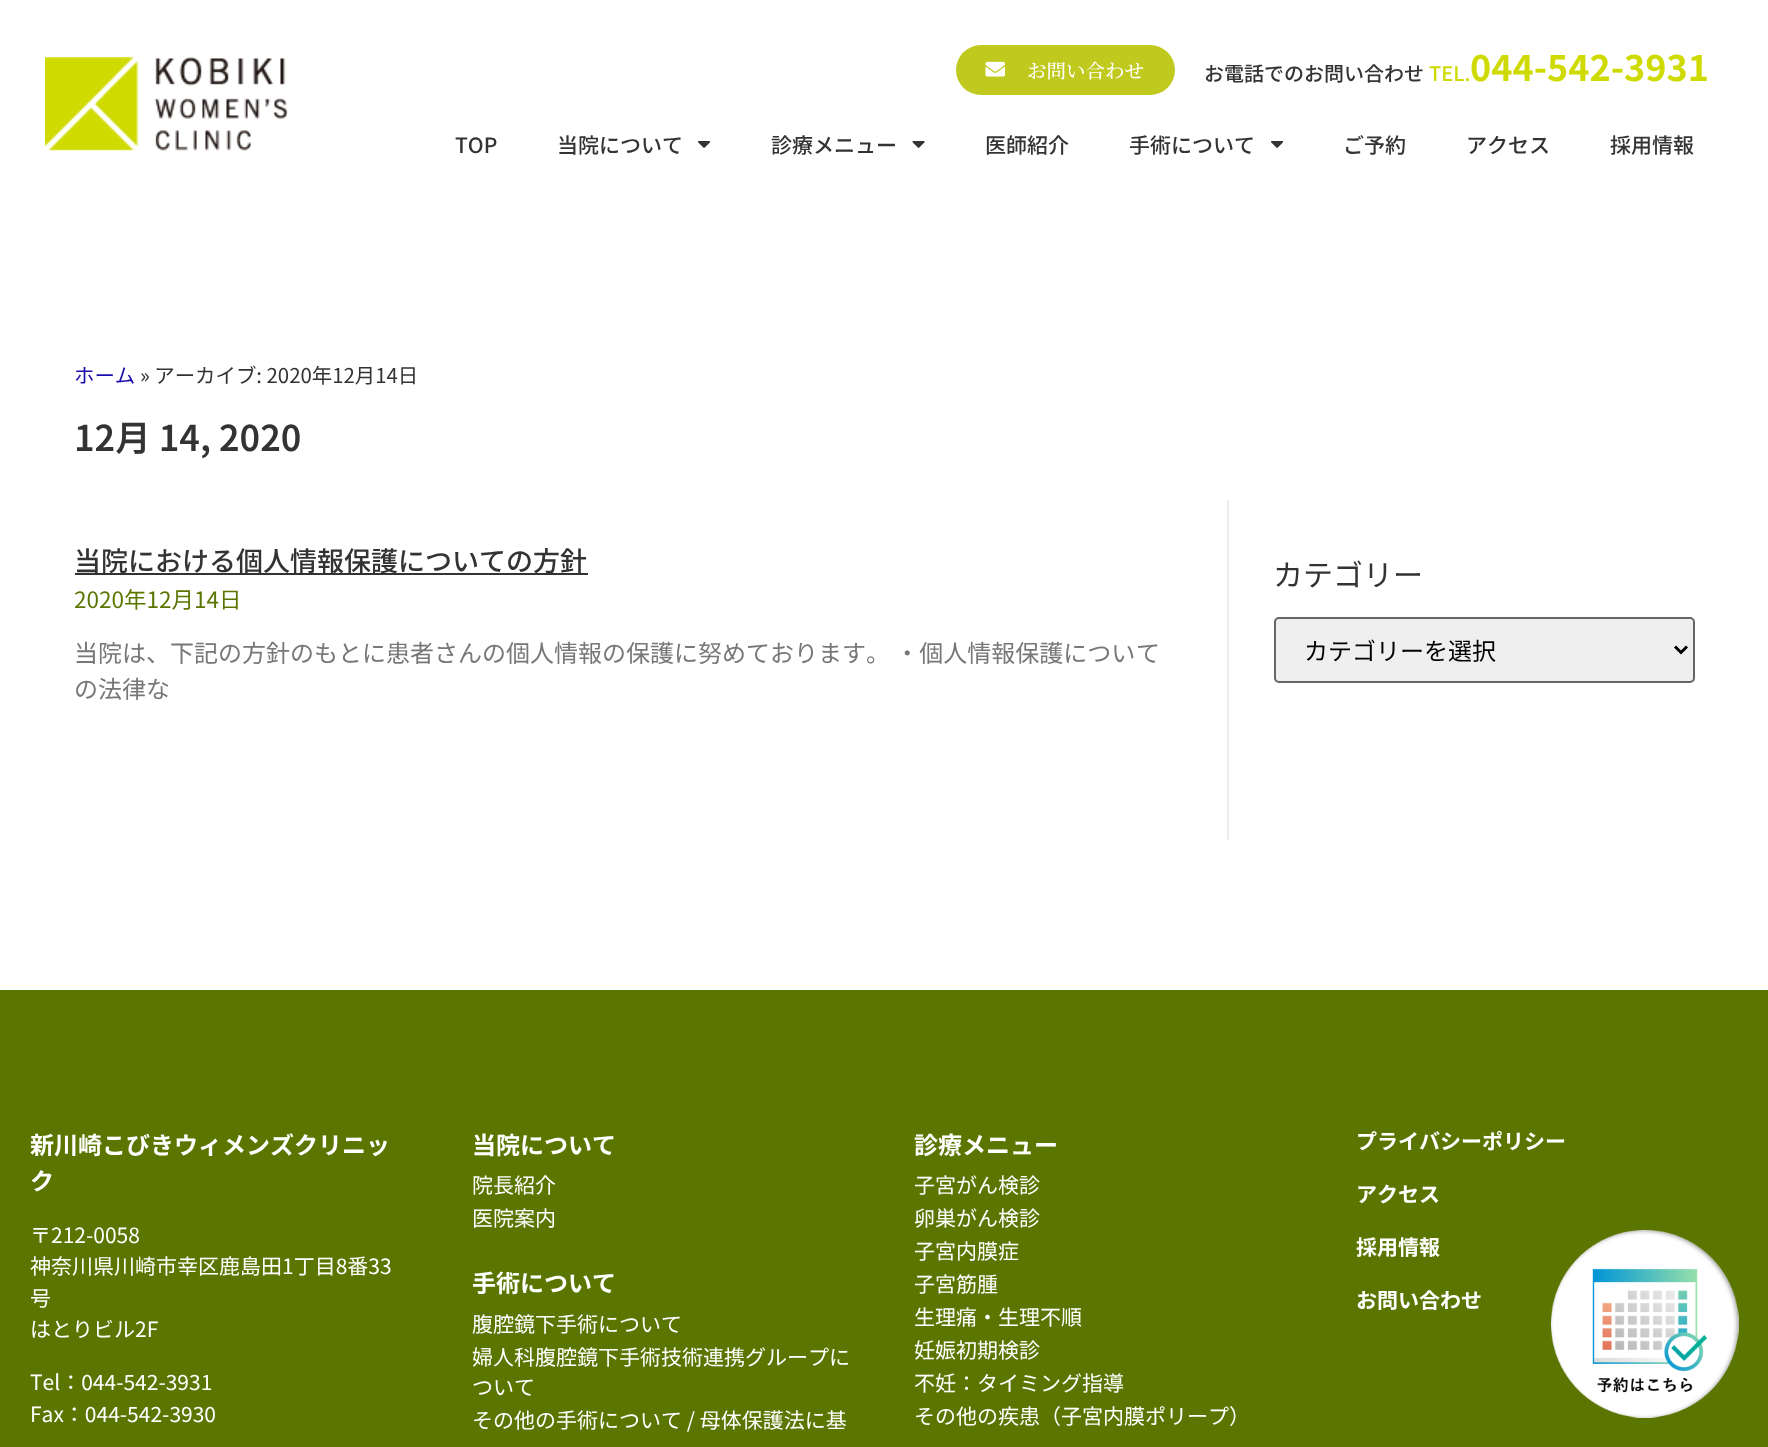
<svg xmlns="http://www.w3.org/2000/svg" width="1768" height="1447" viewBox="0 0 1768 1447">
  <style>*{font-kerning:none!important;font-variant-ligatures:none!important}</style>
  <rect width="100%" height="100%" fill="rgb(255,255,255)"/>
  <image x="45" y="57" width="243" height="94" href="pic1.png"/>
  <rect x="956" y="45" width="219" height="50" rx="25" fill="rgb(192,201,29)"/>
  <image x="985" y="61" width="20" height="16" href="pic2.png"/>
  <text x="1027" y="78" font-family="Noto Serif JP" font-size="19.5" font-weight="500" fill="rgb(255,255,255)">お問い合わせ</text>
  <text x="1204" y="81" font-family="Noto Sans JP" font-size="20" font-weight="500" fill="rgb(51,51,51)">お電話でのお問い合わせ</text>
  <text x="1429" y="81" font-family="Noto Sans JP" font-size="20" font-weight="500" fill="rgb(207,219,0)">TEL.</text>
  <text x="1470" y="81" font-family="Noto Sans JP" font-size="36" font-weight="bold" fill="rgb(207,219,0)">044-542-3931</text>
  <g font-family="Noto Sans JP" font-size="21" font-weight="500" fill="rgb(51,51,51)">
    <text x="455" y="153">TOP</text>
    <text x="557" y="153">当院について</text>
  </g>
  <image x="698" y="141" width="13" height="7" href="pic3.png"/>
  <text x="771" y="153" font-family="Noto Sans JP" font-size="21" font-weight="500" fill="rgb(51,51,51)">診療メニュー</text>
  <image x="912" y="141" width="13" height="7" href="pic4.png"/>
  <g font-family="Noto Sans JP" font-size="21" font-weight="500" fill="rgb(51,51,51)">
    <text x="985" y="153">医師紹介</text>
    <text x="1129" y="153">手術について</text>
  </g>
  <image x="1271" y="141" width="13" height="7" href="pic3.png"/>
  <g font-family="Noto Sans JP" font-size="21" font-weight="500" fill="rgb(51,51,51)">
    <text x="1343" y="153">ご予約</text>
    <text x="1466" y="153">アクセス</text>
    <text x="1610" y="153">採用情報</text>
  </g>
  <text x="74" y="383" font-family="Noto Sans JP" font-size="20.4" fill="rgb(26,13,171)">ホーム</text>
  <text x="140" y="383" font-family="Noto Sans JP" font-size="20.4" fill="rgb(51,51,51)">» アーカイブ: 2020年12月14日</text>
  <text x="74" y="451" font-family="Noto Sans JP" font-size="35.5" font-weight="600" fill="rgb(51,51,51)">12月 14, 2020</text>
  <rect x="75" y="573" width="513" height="2" fill="rgb(51,51,51)"/>
  <text x="74" y="571" font-family="Noto Sans JP" font-size="27" font-weight="500" fill="rgb(51,51,51)">当院における個人情報保護についての方針</text>
  <text x="74" y="608" font-family="Noto Sans JP" font-size="22.5" fill="rgb(91,117,1)">2020年12月14日</text>
  <g font-family="Noto Sans JP" font-size="24" fill="rgb(119,119,119)">
    <text x="74" y="662">当院は、下記の方針のもとに患者さんの個人情報の保護に努めております。 ・個人情報保護につい</text>
    <text x="1136" y="662">て</text>
    <text x="74" y="698">の法律な</text>
  </g>
  <rect x="1227" y="500" width="2" height="340" fill="rgb(236,236,236)"/>
  <text x="1273" y="586" font-family="Noto Sans JP" font-size="30" fill="rgb(51,51,51)">カテゴリー</text>
  <rect x="1275" y="618" width="419" height="64" rx="4" fill="rgb(239,239,239)" stroke="rgb(102,102,102)" stroke-width="2"/>
  <path d="M1675 646.5L1681 652.5L1687 646.5" fill="none" stroke="rgb(0,0,0)" stroke-width="3"/>
  <text x="1304" y="660" font-family="Noto Sans JP" font-size="24" fill="rgb(0,0,0)">カテゴリーを選択</text>
  <rect x="0" y="990" width="1768" height="457" fill="rgb(91,117,1)"/>
  <g font-family="Noto Sans JP" font-size="24" font-weight="bold" fill="rgb(255,255,255)">
    <text>
      <tspan x="30" y="1154">新川崎こびきウィメンズクリニッ</tspan>
      <tspan x="30" y="1190">ク</tspan>
    </text>
  </g>
  <g font-family="Noto Sans JP" font-size="21" fill="rgb(255,255,255)">
    <text>
      <tspan x="30" y="1243">〒212-0058</tspan>
      <tspan x="30" y="1274">神奈川県川崎市幸区鹿島田1丁目8番33</tspan>
      <tspan x="30" y="1306">号</tspan>
      <tspan x="30" y="1337">はとりビル2F</tspan>
    </text>
    <text>
      <tspan x="30" y="1390">Tel：044-542-3931</tspan>
      <tspan x="30" y="1422">Fax：044-542-3930</tspan>
    </text>
  </g>
  <text x="472" y="1154" font-family="Noto Sans JP" font-size="24" font-weight="bold" fill="rgb(255,255,255)">当院について</text>
  <g font-family="Noto Sans JP" font-size="21" fill="rgb(255,255,255)">
    <text>
      <tspan x="472" y="1193">院長紹介</tspan>
      <tspan x="472" y="1226">医院案内</tspan>
    </text>
  </g>
  <text x="472" y="1292" font-family="Noto Sans JP" font-size="24" font-weight="bold" fill="rgb(255,255,255)">手術について</text>
  <g font-family="Noto Sans JP" font-size="21" fill="rgb(255,255,255)">
    <text>
      <tspan x="472" y="1332">腹腔鏡下手術について</tspan>
      <tspan x="472" y="1365">婦人科腹腔鏡下手術技術連携グループに</tspan>
      <tspan x="472" y="1395">ついて</tspan>
      <tspan x="472" y="1428">その他の手術について / 母体保護法に基</tspan>
    </text>
  </g>
  <text x="914" y="1154" font-family="Noto Sans JP" font-size="24" font-weight="bold" fill="rgb(255,255,255)">診療メニュー</text>
  <g font-family="Noto Sans JP" font-size="21" fill="rgb(255,255,255)">
    <text>
      <tspan x="914" y="1193">子宮がん検診</tspan>
      <tspan x="914" y="1226">卵巣がん検診</tspan>
      <tspan x="914" y="1259">子宮内膜症</tspan>
      <tspan x="914" y="1292">子宮筋腫</tspan>
      <tspan x="914" y="1325">生理痛・生理不順</tspan>
      <tspan x="914" y="1358">妊娠初期検診</tspan>
      <tspan x="914" y="1391">不妊：タイミング指導</tspan>
      <tspan x="914" y="1424">その他の疾患（子宮内膜ポリープ）</tspan>
    </text>
  </g>
  <g font-family="Noto Sans JP" font-size="21" font-weight="bold" fill="rgb(255,255,255)">
    <text x="1356" y="1149">プライバシーポリシー</text>
    <text x="1356" y="1202">アクセス</text>
    <text x="1356" y="1255">採用情報</text>
    <text x="1356" y="1308">お問い合わせ</text>
  </g>
  <image x="1551" y="1230" width="188" height="188" href="pic5.png"/>
</svg>
